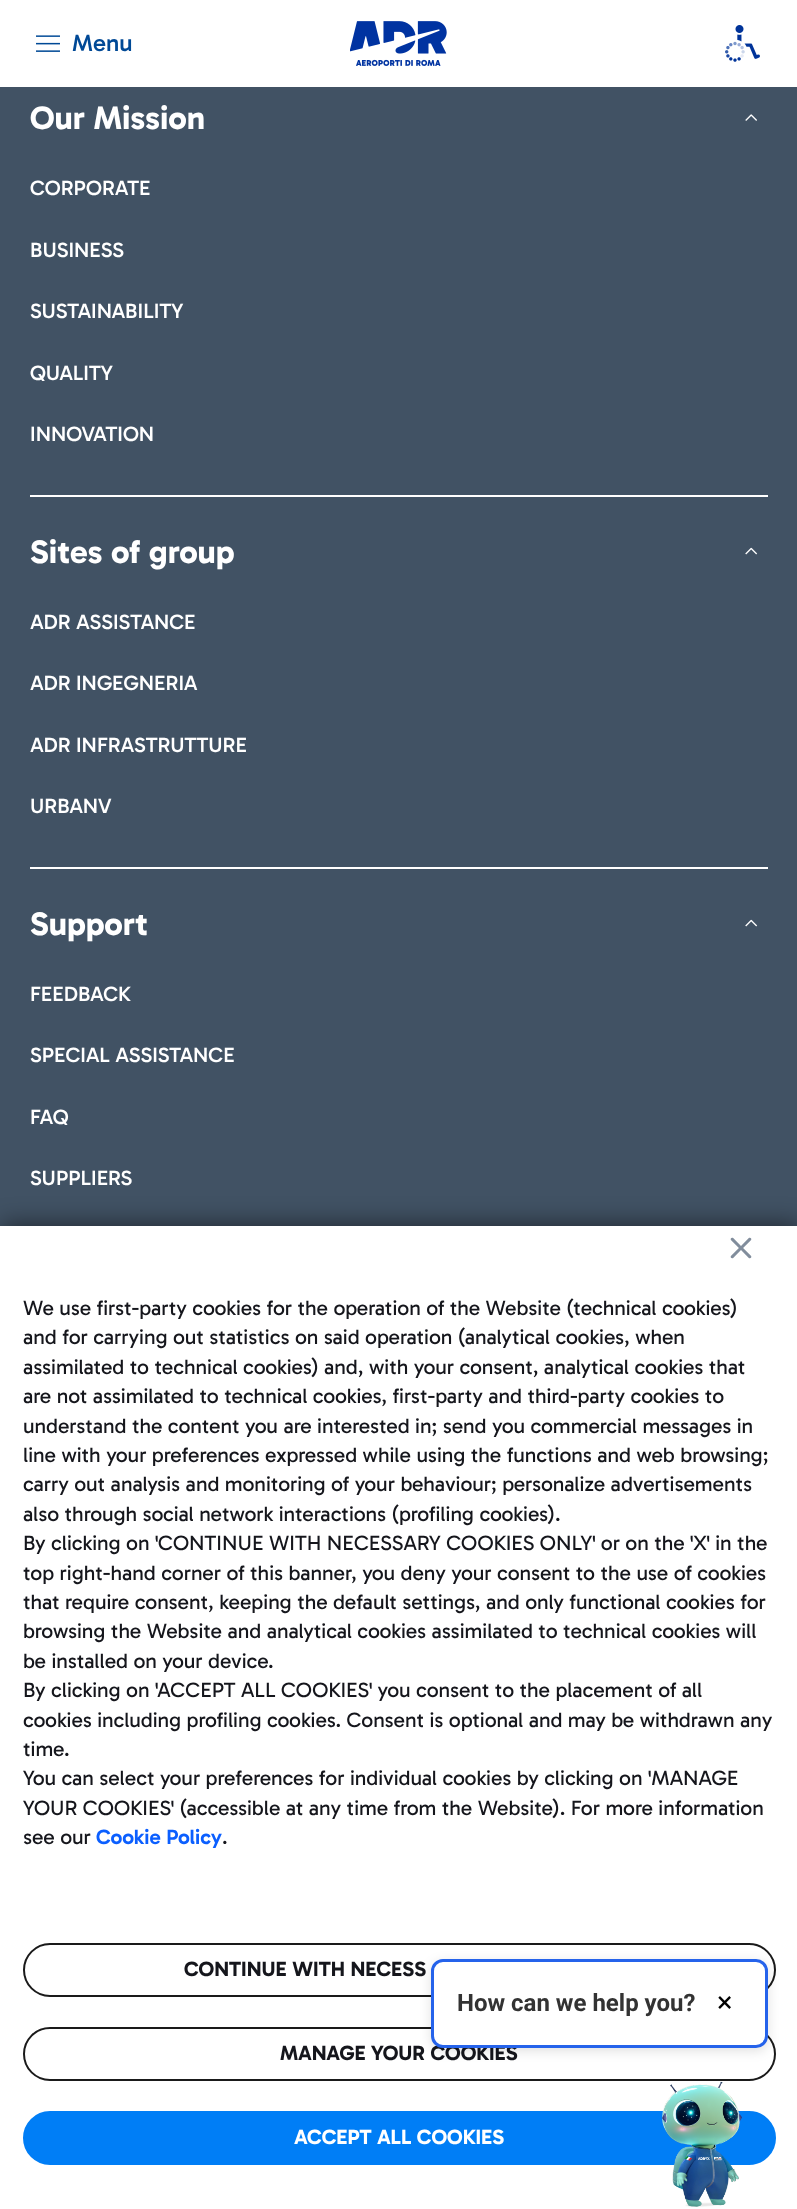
<svg xmlns="http://www.w3.org/2000/svg" width="797" height="2209" viewBox="0 0 797 2209">
  <rect width="100%" height="100%" fill="rgb(65,82,100)"/>
  <rect x="0" y="0" width="797" height="87" fill="rgb(255,255,255)"/>
  <image x="36" y="35" width="24" height="17" href="pic1.png"/>
  <text x="72" y="51" font-family="Gabarito" font-size="24" font-weight="500" fill="rgb(0,73,150)">Menu</text>
  <image x="350" y="21" width="97" height="45" href="pic2.png"/>
  <image x="725" y="25" width="35" height="37" href="pic3.png"/>
  <rect x="30" y="495" width="738" height="2" fill="rgb(255,255,255)"/>
  <text x="30" y="129" font-family="Gabarito" font-size="33" font-weight="bold" fill="rgb(255,255,255)">Our Mission</text>
  <image x="745" y="114" width="12" height="7" href="pic4.png"/>
  <g font-family="Gabarito" font-size="21" font-weight="500" fill="rgb(255,255,255)">
    <text x="30" y="195">CORPORATE</text>
    <text x="30" y="257">BUSINESS</text>
    <text x="30" y="318">SUSTAINABILITY</text>
    <text x="30" y="380">QUALITY</text>
    <text x="30" y="441">INNOVATION</text>
  </g>
  <rect x="30" y="867" width="738" height="2" fill="rgb(255,255,255)"/>
  <text x="30" y="563" font-family="Gabarito" font-size="33" font-weight="bold" fill="rgb(255,255,255)">Sites of group</text>
  <image x="745" y="547" width="13" height="8" href="pic5.png"/>
  <g font-family="Gabarito" font-size="21" font-weight="500" fill="rgb(255,255,255)">
    <text x="30" y="629">ADR ASSISTANCE</text>
    <text x="30" y="690">ADR INGEGNERIA</text>
    <text x="30" y="752">ADR INFRASTRUTTURE</text>
    <text x="30" y="813">URBANV</text>
  </g>
  <text x="30" y="935" font-family="Gabarito" font-size="33" font-weight="bold" fill="rgb(255,255,255)">Support</text>
  <image x="745" y="919" width="13" height="8" href="pic5.png"/>
  <g font-family="Gabarito" font-size="21" font-weight="500" fill="rgb(255,255,255)">
    <text x="30" y="1001">FEEDBACK</text>
    <text x="30" y="1062">SPECIAL ASSISTANCE</text>
    <text x="30" y="1124">FAQ</text>
    <text x="30" y="1185">SUPPLIERS</text>
  </g>
  <rect x="2" y="1224" width="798" height="984" fill="rgba(0,0,0,0.5)" filter="blur(12px)"/>
  <rect x="0" y="1226" width="797" height="983" fill="rgb(255,255,255)"/>
  <image x="730" y="1237" width="22" height="22" href="pic6.png"/>
  <g font-family="Gabarito" font-size="21" fill="rgb(21,22,28)">
    <text>
      <tspan x="23" y="1315">We use first-party cookies for the operation of the Website (technical cookies)</tspan>
      <tspan x="23" y="1344">and for carrying out statistics on said operation (analytical cookies, when</tspan>
      <tspan x="23" y="1374">assimilated to technical cookies) and, with your consent, analytical cookies that</tspan>
      <tspan x="23" y="1403">are not assimilated to technical cookies, first-party and third-party cookies to</tspan>
      <tspan x="23" y="1433">understand the content you are interested in; send you commercial messages in</tspan>
      <tspan x="23" y="1462">line with your preferences expressed while using the functions and web browsing;</tspan>
      <tspan x="23" y="1491">carry out analysis and monitoring of your behaviour; personalize advertisements</tspan>
      <tspan x="23" y="1521">also through social network interactions (profiling cookies).</tspan>
      <tspan x="23" y="1550">By clicking on 'CONTINUE WITH NECESSARY COOKIES ONLY' or on the 'X' in the</tspan>
      <tspan x="23" y="1580">top right-hand corner of this banner, you deny your consent to the use of cookies</tspan>
      <tspan x="23" y="1609">that require consent, keeping the default settings, and only functional cookies for</tspan>
      <tspan x="23" y="1638">browsing the Website and analytical cookies assimilated to technical cookies will</tspan>
      <tspan x="23" y="1668">be installed on your device.</tspan>
      <tspan x="23" y="1697">By clicking on 'ACCEPT ALL COOKIES' you consent to the placement of all</tspan>
      <tspan x="23" y="1727">cookies including profiling cookies. Consent is optional and may be withdrawn any</tspan>
      <tspan x="23" y="1756">time.</tspan>
      <tspan x="23" y="1785">You can select your preferences for individual cookies by clicking on 'MANAGE</tspan>
      <tspan x="23" y="1815">YOUR COOKIES' (accessible at any time from the Website). For more information</tspan>
      <tspan x="23" y="1844">see our</tspan>
    </text>
  </g>
  <text x="96" y="1844" font-family="Gabarito" font-size="21" font-weight="600" fill="rgb(11,95,255)">Cookie Policy</text>
  <text x="222" y="1844" font-family="Gabarito" font-size="21" fill="rgb(21,22,28)">.</text>
  <rect x="24" y="1944" width="751" height="52" rx="26" fill="none" stroke="rgb(26,26,26)" stroke-width="2"/>
  <text x="184" y="1976" font-family="Gabarito" font-size="21" font-weight="bold" fill="rgb(21,22,28)">CONTINUE WITH NECESS</text>
  <rect x="24" y="2028" width="751" height="52" rx="26" fill="none" stroke="rgb(26,26,26)" stroke-width="2"/>
  <text x="280" y="2060" font-family="Gabarito" font-size="21" font-weight="bold" fill="rgb(21,22,28)">MANAGE YOUR COOKIES</text>
  <rect x="24" y="2112" width="751" height="52" rx="26" fill="rgb(0,126,246)" stroke="rgb(0,126,246)" stroke-width="2"/>
  <text x="294" y="2144" font-family="Gabarito" font-size="21" font-weight="bold" fill="rgb(255,255,255)">ACCEPT ALL COOKIES</text>
  <rect x="431" y="1962" width="337" height="89" rx="12" fill="rgba(0,0,0,0.12)" filter="blur(6px)"/>
  <rect x="432.5" y="1960.5" width="334" height="86" rx="10.5" fill="rgb(255,255,255)" stroke="rgb(37,99,235)" stroke-width="3"/>
  <text x="457" y="2011" font-family="Roboto" font-size="24" font-weight="bold" fill="rgb(51,51,51)">How can we help you?</text>
  <text x="717" y="2012" font-family="Roboto" font-size="29" fill="rgb(0,0,0)">×</text>
  <image x="662" y="2081" width="80" height="126" href="pic7.png"/>
</svg>
